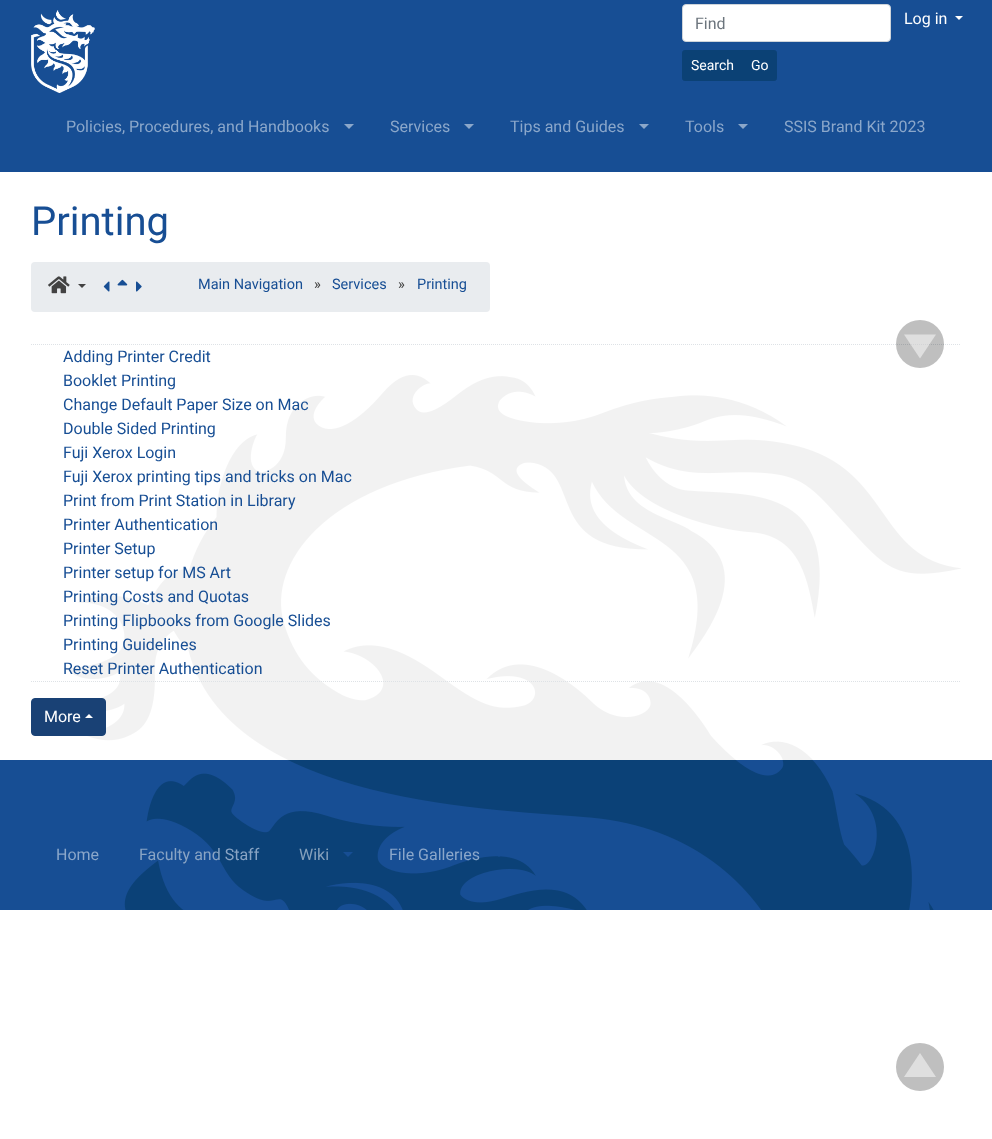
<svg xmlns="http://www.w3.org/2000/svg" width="992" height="1139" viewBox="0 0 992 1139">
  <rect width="100%" height="100%" fill="rgb(255,255,255)"/>
  <rect x="0" y="0" width="992" height="172" fill="rgb(23,78,148)"/>
  <image x="31" y="10" width="64" height="83" href="pic1.png"/>
  <rect x="682.5" y="4.5" width="208" height="37" rx="3.5" fill="rgb(255,255,255)" stroke="rgb(206,212,218)"/>
  <text x="695" y="29" font-family="Roboto" font-size="16" fill="rgb(108,117,125)">Find</text>
  <path d="M684.5 50.5H742.5V80.5H684.5C683.5 80.5 682.5 79.5 682.5 78.5V52.5C682.5 51.5 683.5 50.5 684.5 50.5Z" fill="rgb(11,65,117)" stroke="rgb(11,65,117)"/>
  <text x="691" y="70" font-family="Roboto" font-size="14" fill="rgb(255,255,255)">Search</text>
  <path d="M742.5 50.5H774.5C775.5 50.5 776.5 51.5 776.5 52.5V78.5C776.5 79.5 775.5 80.5 774.5 80.5H742.5Z" fill="rgb(11,65,117)" stroke="rgb(11,65,117)"/>
  <text x="751" y="70" font-family="Roboto" font-size="14" fill="rgb(255,255,255)">Go</text>
  <text x="904" y="24" font-family="Roboto" font-size="16" fill="rgb(255,255,255)">Log in</text>
  <path d="M955 16H963L959 20Z" fill="rgb(255,255,255)"/>
  <image x="66" y="375" width="895" height="385" href="pic2.png"/>
  <text x="66" y="132" font-family="Roboto" font-size="16" fill="rgb(139,167,202)">Policies, Procedures, and Handbooks</text>
  <path d="M344 124H354L349 129Z" fill="rgb(139,167,202)"/>
  <text x="390" y="132" font-family="Roboto" font-size="16" fill="rgb(139,167,202)">Services</text>
  <path d="M464 124H474L469 129Z" fill="rgb(139,167,202)"/>
  <text x="510" y="132" font-family="Roboto" font-size="16" fill="rgb(139,167,202)">Tips and Guides</text>
  <path d="M639 124H649L644 129Z" fill="rgb(139,167,202)"/>
  <text x="685" y="132" font-family="Roboto" font-size="16" fill="rgb(139,167,202)">Tools</text>
  <path d="M738 124H748L743 129Z" fill="rgb(139,167,202)"/>
  <text x="784" y="132" font-family="Roboto" font-size="16" fill="rgb(139,167,202)">SSIS Brand Kit 2023</text>
  <path d="M31 344.5H961" fill="none" stroke="rgb(222,226,230)" stroke-dasharray="1 1"/>
  <circle cx="920" cy="344" r="24" fill="rgba(0,0,0,0.25)"/>
  <path d="M904 334.5H936L920 358.5Z" fill="rgba(255,255,255,0.5)"/>
  <text x="31" y="235" font-family="Roboto" font-size="40" fill="rgb(23,78,148)">Printing</text>
  <rect x="31" y="262" width="459" height="50" rx="4" fill="rgb(233,236,239)"/>
  <image x="48" y="276" width="22" height="18" href="pic3.png"/>
  <path d="M78 284H86L82 288Z" fill="rgb(66,66,66)"/>
  <image x="103" y="281" width="7" height="11" href="pic4.png"/>
  <image x="117" y="279" width="11" height="7" href="pic5.png"/>
  <image x="136" y="281" width="6" height="11" href="pic6.png"/>
  <text x="198" y="289" font-family="Roboto" font-size="14.5" fill="rgb(23,78,148)">Main Navigation</text>
  <text x="314" y="289" font-family="Roboto" font-size="14.5" fill="rgb(66,66,66)">»</text>
  <text x="332" y="289" font-family="Roboto" font-size="14.5" fill="rgb(23,78,148)">Services</text>
  <text x="398" y="289" font-family="Roboto" font-size="14.5" fill="rgb(66,66,66)">»</text>
  <text x="417" y="289" font-family="Roboto" font-size="14.5" fill="rgb(23,78,148)">Printing</text>
  <path d="M31 681.5H961" fill="none" stroke="rgb(222,226,230)" stroke-dasharray="1 1"/>
  <g font-family="Roboto" font-size="16" fill="rgb(23,78,148)">
    <text>
      <tspan x="63" y="362">Adding Printer Credit</tspan>
      <tspan x="63" y="386">Booklet Printing</tspan>
      <tspan x="63" y="410">Change Default Paper Size on Mac</tspan>
      <tspan x="63" y="434">Double Sided Printing</tspan>
      <tspan x="63" y="458">Fuji Xerox Login</tspan>
      <tspan x="63" y="482">Fuji Xerox printing tips and tricks on Mac</tspan>
      <tspan x="63" y="506">Print from Print Station in Library</tspan>
      <tspan x="63" y="530">Printer Authentication</tspan>
      <tspan x="63" y="554">Printer Setup</tspan>
      <tspan x="63" y="578">Printer setup for MS Art</tspan>
      <tspan x="63" y="602">Printing Costs and Quotas</tspan>
      <tspan x="63" y="626">Printing Flipbooks from Google Slides</tspan>
      <tspan x="63" y="650">Printing Guidelines</tspan>
      <tspan x="63" y="674">Reset Printer Authentication</tspan>
    </text>
  </g>
  <rect x="31.5" y="698.5" width="74" height="37" rx="3.5" fill="rgb(25,65,117)" stroke="rgb(25,65,117)"/>
  <text x="44" y="722" font-family="Roboto" font-size="16" fill="rgb(255,255,255)">More</text>
  <path d="M93 718H85L89 714Z" fill="rgb(255,255,255)"/>
  <rect x="0" y="760" width="992" height="150" fill="rgb(23,78,148)"/>
  <image x="124" y="760" width="810" height="150" href="pic7.png"/>
  <text x="56" y="860" font-family="Roboto" font-size="16" fill="rgb(139,167,202)">Home</text>
  <text x="139" y="860" font-family="Roboto" font-size="16" fill="rgb(137,164,196)">Faculty and Staff</text>
  <text x="299" y="860" font-family="Roboto" font-size="16" fill="rgb(133,160,187)">Wiki</text>
  <path d="M343 852H353L348 857Z" fill="rgb(23,78,148)"/>
  <text x="389" y="860" font-family="Roboto" font-size="16" fill="rgb(139,167,202)">File Galleries</text>
  <path d="M494 852H504L499 857Z" fill="rgb(23,78,148)"/>
  <circle cx="920" cy="1067" r="24" fill="rgb(191,191,191)"/>
  <path d="M936 1077H904L920 1053Z" fill="rgb(223,223,223)"/>
</svg>
